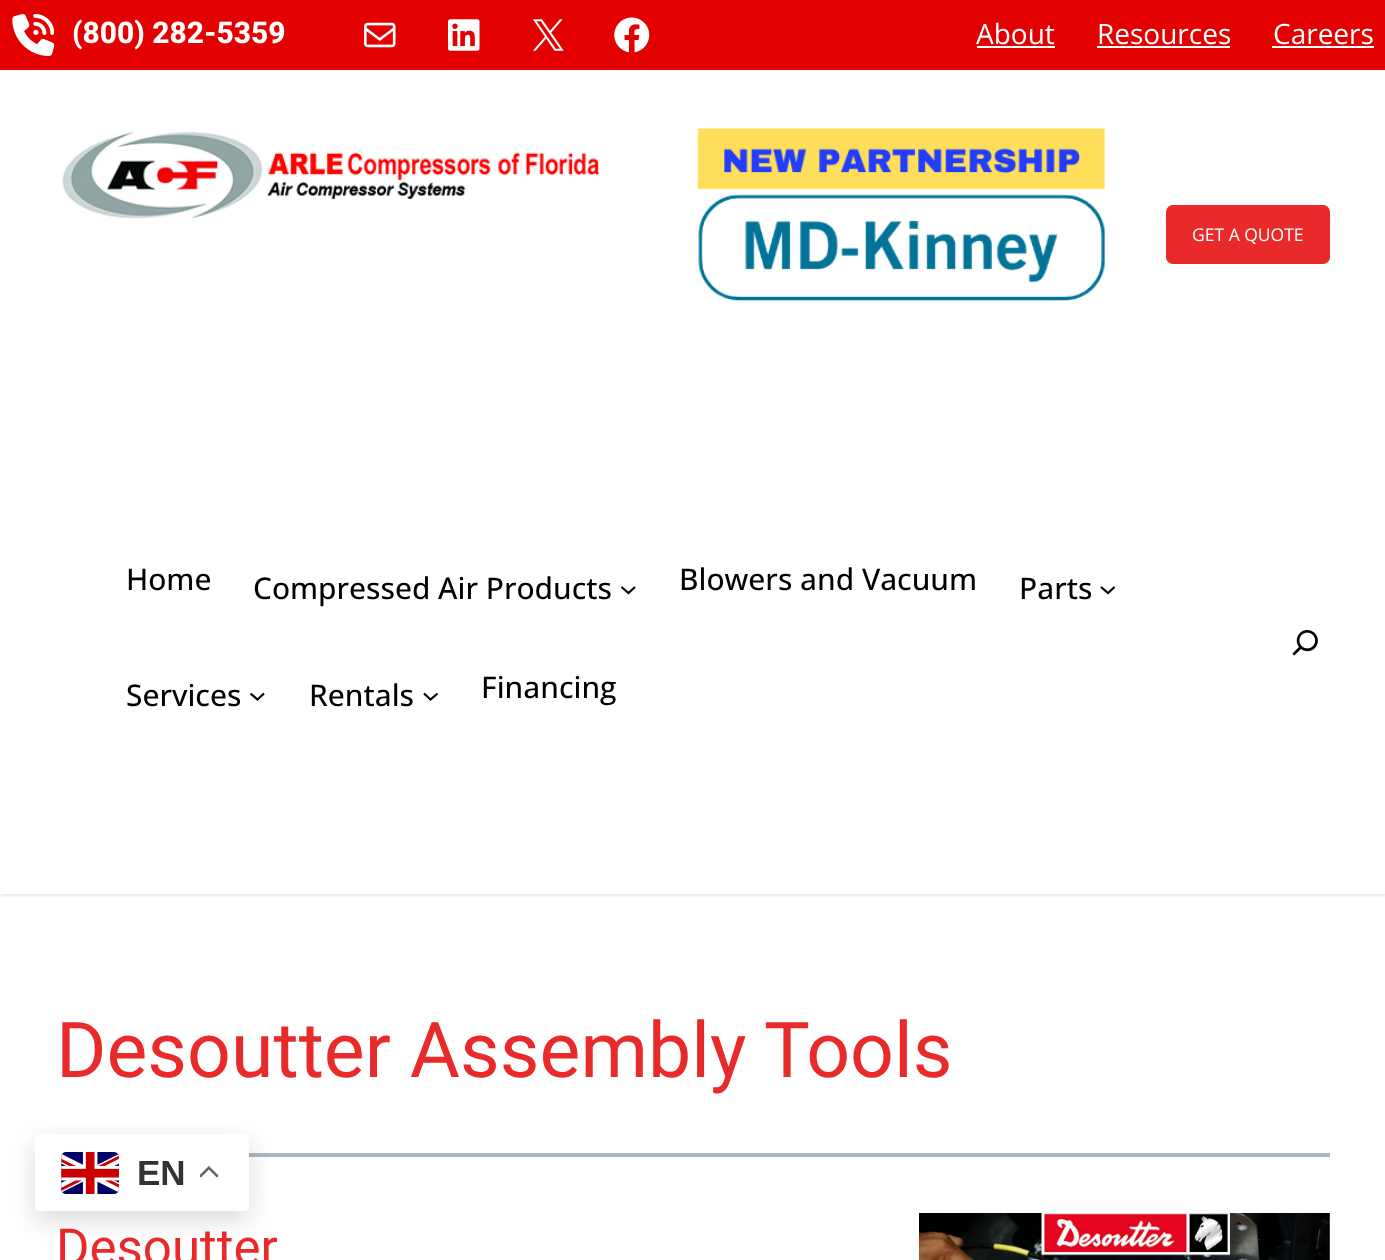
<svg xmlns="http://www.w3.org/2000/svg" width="1385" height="1260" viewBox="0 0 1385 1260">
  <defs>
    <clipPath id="clip1"><rect x="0" y="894" width="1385" height="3"/></clipPath>
  </defs>
  <rect width="100%" height="100%" fill="rgb(255,255,255)"/>
  <g clip-path="url(#clip1)">
    <rect x="0" y="0" width="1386" height="894" fill="rgba(0,0,0,0.2)" filter="blur(2.5px)"/>
  </g>
  <rect x="0" y="0" width="1385" height="70" fill="rgb(226,0,0)"/>
  <image x="12" y="14" width="42" height="42" href="pic1.png"/>
  <text x="72" y="43" font-family="Roboto" font-size="29.9" font-weight="800" fill="rgb(255,255,255)">(800) 282-5359</text>
  <image x="364" y="22" width="32" height="26" href="pic2.png"/>
  <image x="448" y="19" width="32" height="32" href="pic3.png"/>
  <image x="533" y="19" width="31" height="32" href="pic4.png"/>
  <image x="614" y="17" width="36" height="36" href="pic5.png"/>
  <text x="976" y="44" font-family="Open Sans" font-size="28" fill="rgb(255,255,255)">About</text>
  <rect x="977" y="46" width="78" height="2" fill="rgb(255,255,255)"/>
  <text x="1097" y="44" font-family="Open Sans" font-size="28" fill="rgb(255,255,255)">Resources</text>
  <rect x="1097" y="46" width="133" height="2" fill="rgb(255,255,255)"/>
  <text x="1273" y="44" font-family="Open Sans" font-size="28" fill="rgb(255,255,255)">Careers</text>
  <rect x="1272" y="46" width="102" height="2" fill="rgb(255,255,255)"/>
  <image x="62" y="131" width="538" height="88" href="pic6.png"/>
  <image x="697" y="128" width="409" height="173" href="pic7.png"/>
  <rect x="1166" y="205" width="164" height="59" rx="7" fill="rgb(232,42,42)"/>
  <text x="1192" y="241" font-family="Open Sans" font-size="17.5" fill="rgb(255,255,255)">GET A QUOTE</text>
  <g font-family="Open Sans" font-size="29.9" font-weight="500" fill="rgb(0,0,0)">
    <text x="126" y="590">Home</text>
    <text x="253" y="599">Compressed Air Products</text>
  </g>
  <path d="M621.5 587L628.5 593L635 587" fill="none" stroke="rgb(0,0,0)" stroke-width="2.2"/>
  <g font-family="Open Sans" font-size="29.9" font-weight="500" fill="rgb(0,0,0)">
    <text x="679" y="590">Blowers and Vacuum</text>
    <text x="1019" y="599">Parts</text>
  </g>
  <path d="M1101 587L1108 593L1114.5 587" fill="none" stroke="rgb(0,0,0)" stroke-width="2.2"/>
  <text x="126" y="706" font-family="Open Sans" font-size="29.9" font-weight="500" fill="rgb(0,0,0)">Services</text>
  <path d="M250.5 693.5L257.5 699.5L264 693.5" fill="none" stroke="rgb(0,0,0)" stroke-width="2.2"/>
  <text x="309" y="706" font-family="Open Sans" font-size="29.9" font-weight="500" fill="rgb(0,0,0)">Rentals</text>
  <path d="M424 693.5L430.5 699.5L437.5 693.5" fill="none" stroke="rgb(0,0,0)" stroke-width="2.2"/>
  <text x="481" y="698" font-family="Open Sans" font-size="29.9" font-weight="500" fill="rgb(0,0,0)">Financing</text>
  <image x="1292" y="630" width="26" height="26" href="pic8.png"/>
  <text x="56" y="1077" font-family="Roboto" font-size="77" fill="rgb(232,42,42)">Desoutter Assembly Tools</text>
  <rect x="249" y="1153" width="1081" height="4" fill="rgb(171,184,195)"/>
  <text x="56" y="1265" font-family="Roboto" font-size="51" fill="rgb(232,42,42)">Desoutter</text>
  <image x="919" y="1213" width="411" height="47" href="pic9.png"/>
  <rect x="35" y="1143" width="214" height="77" rx="4" fill="rgba(0,0,0,0.15)" filter="blur(13px)"/>
  <rect x="35" y="1134" width="214" height="77" rx="4" fill="rgb(255,255,255)"/>
  <image x="61" y="1152" width="58" height="42" href="pic10.png"/>
  <text x="137" y="1185" font-family="Liberation Sans" font-size="35" font-weight="bold" fill="rgb(51,51,51)">EN</text>
  <image x="200" y="1166" width="19" height="12" href="pic11.png"/>
</svg>
